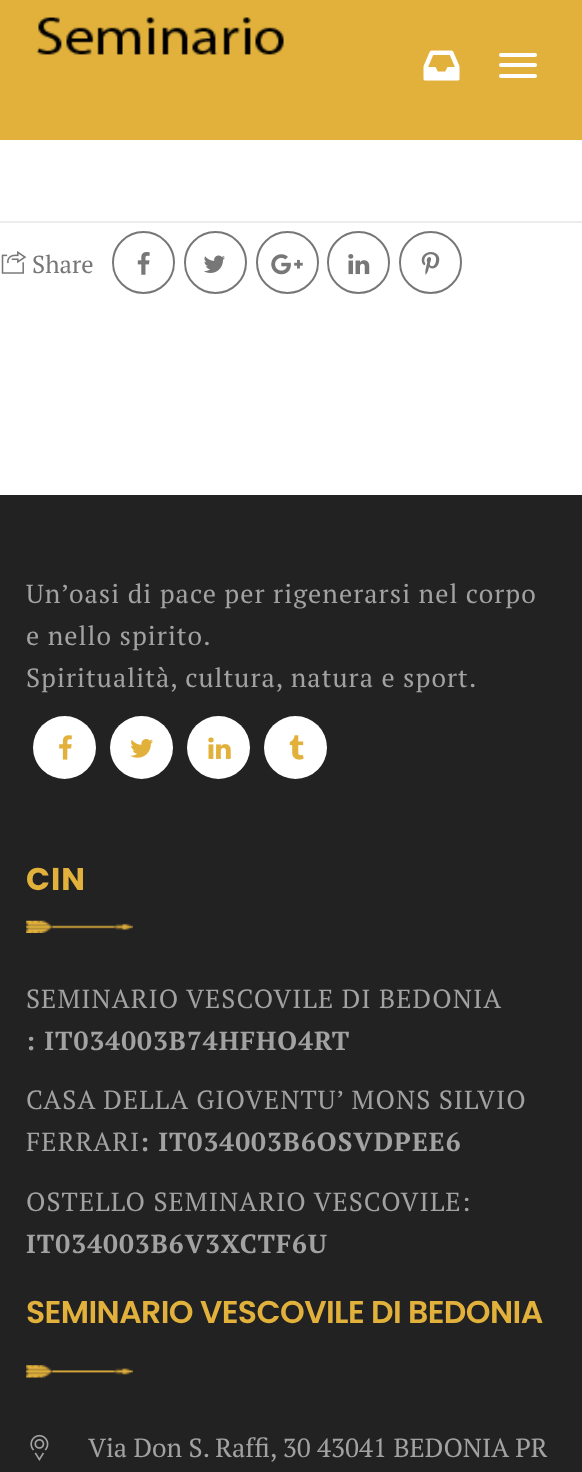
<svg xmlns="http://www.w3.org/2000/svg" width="582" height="1472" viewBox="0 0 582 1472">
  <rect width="100%" height="100%" fill="rgb(255,255,255)"/>
  <rect x="0" y="0" width="582" height="140" fill="rgb(226,177,60)"/>
  <image x="36" y="17" width="248" height="38" href="pic1.png"/>
  <rect x="499" y="53" width="38" height="4" rx="2" fill="rgb(255,255,255)"/>
  <rect x="499" y="63" width="38" height="4" rx="2" fill="rgb(255,255,255)"/>
  <rect x="499" y="74" width="38" height="4" rx="2" fill="rgb(255,255,255)"/>
  <image x="423" y="50" width="37" height="31" href="pic2.png"/>
  <rect x="0" y="221" width="582" height="2" fill="rgb(236,236,236)"/>
  <image x="1" y="251" width="26" height="23" href="pic3.png"/>
  <text x="32" y="273" font-family="PT Serif" font-size="24.5" fill="rgb(119,119,119)">Share</text>
  <circle cx="143.5" cy="262.5" r="30.5" fill="none" stroke="rgb(119,119,119)" stroke-width="2"/>
  <image x="137" y="252" width="13" height="23" href="pic4.png"/>
  <circle cx="215.5" cy="262.5" r="30.5" fill="none" stroke="rgb(119,119,119)" stroke-width="2"/>
  <image x="203" y="255" width="22" height="18" href="pic5.png"/>
  <circle cx="287.5" cy="262.5" r="30.5" fill="none" stroke="rgb(119,119,119)" stroke-width="2"/>
  <image x="271" y="254" width="32" height="21" href="pic6.png"/>
  <circle cx="358.5" cy="262.5" r="30.5" fill="none" stroke="rgb(119,119,119)" stroke-width="2"/>
  <image x="348" y="254" width="22" height="21" href="pic7.png"/>
  <circle cx="430.5" cy="262.5" r="30.5" fill="none" stroke="rgb(119,119,119)" stroke-width="2"/>
  <image x="421" y="252" width="19" height="23" href="pic8.png"/>
  <rect x="0" y="495" width="582" height="977" fill="rgb(34,34,34)"/>
  <g font-family="PT Serif" font-size="26.25" letter-spacing="1.05" fill="rgb(162,162,162)">
    <text>
      <tspan x="26" y="603">Un’oasi di pace per rigenerarsi nel corpo</tspan>
      <tspan x="26" y="645">e nello spirito.</tspan>
      <tspan x="26" y="687">Spiritualità, cultura, natura e sport.</tspan>
    </text>
  </g>
  <circle cx="64.5" cy="747.5" r="31.5" fill="rgb(255,255,255)"/>
  <image x="59" y="735" width="13" height="25" href="pic9.png"/>
  <circle cx="141.5" cy="747.5" r="31.5" fill="rgb(255,255,255)"/>
  <image x="130" y="739" width="24" height="19" href="pic10.png"/>
  <circle cx="218.5" cy="747.5" r="31.5" fill="rgb(255,255,255)"/>
  <image x="208" y="737" width="23" height="22" href="pic11.png"/>
  <circle cx="295.5" cy="747.5" r="31.5" fill="rgb(255,255,255)"/>
  <image x="289" y="735" width="15" height="25" href="pic12.png"/>
  <image x="26" y="920" width="107" height="13" href="pic13.png"/>
  <text x="26" y="890" font-family="Poppins" font-size="31.5" font-weight="bold" letter-spacing="1" fill="rgb(226,177,60)">CIN</text>
  <text x="26" y="1008" font-family="PT Serif" font-size="26.25" letter-spacing="1.05" fill="rgb(162,162,162)">SEMINARIO VESCOVILE DI BEDONIA</text>
  <text x="26" y="1050" font-family="PT Serif" font-size="26.25" font-weight="bold" letter-spacing="1.05" fill="rgb(162,162,162)">: IT034003B74HFHO4RT</text>
  <g font-family="PT Serif" font-size="26.25" letter-spacing="1.05" fill="rgb(162,162,162)">
    <text>
      <tspan x="26" y="1109">CASA DELLA GIOVENTU’ MONS SILVIO</tspan>
      <tspan x="26" y="1151">FERRARI</tspan>
    </text>
  </g>
  <text x="140" y="1151" font-family="PT Serif" font-size="26.25" font-weight="bold" letter-spacing="1.05" fill="rgb(162,162,162)">: IT034003B6OSVDPEE6</text>
  <text x="26" y="1211" font-family="PT Serif" font-size="26.25" letter-spacing="1.05" fill="rgb(162,162,162)">OSTELLO SEMINARIO VESCOVILE:</text>
  <text x="26" y="1253" font-family="PT Serif" font-size="26.25" font-weight="bold" letter-spacing="1.05" fill="rgb(162,162,162)">IT034003B6V3XCTF6U</text>
  <image x="26" y="1365" width="107" height="13" href="pic14.png"/>
  <text x="26" y="1323" font-family="Poppins" font-size="31.5" font-weight="600" letter-spacing="-0.6" fill="rgb(226,177,60)">SEMINARIO VESCOVILE DI BEDONIA</text>
  <image x="30" y="1434" width="19" height="27" href="pic15.png"/>
  <text x="88" y="1457" font-family="PT Serif" font-size="26.25" fill="rgb(162,162,162)">Via Don S. Raffi, 30 43041 BEDONIA PR</text>
</svg>
